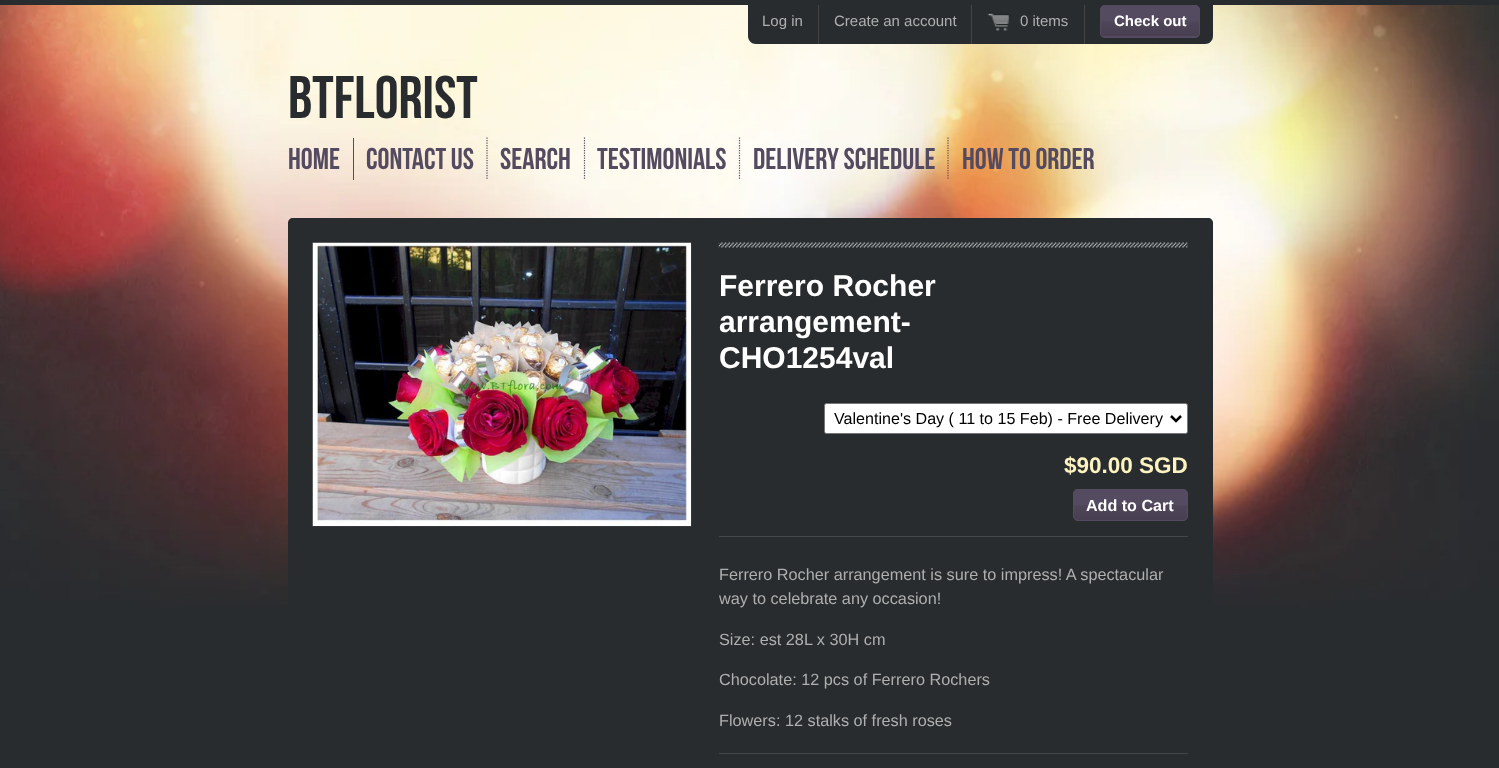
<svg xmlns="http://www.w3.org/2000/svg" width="1499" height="768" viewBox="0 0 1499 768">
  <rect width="100%" height="100%" fill="rgb(40,44,46)"/>
  <image x="0" y="5" width="1499" height="604" href="pic1.png"/>
  <path d="M748 5H1213V36C1213 40.5 1209.5 44 1205 44H756C751.5 44 748 40.5 748 36Z" fill="rgb(40,44,46)"/>
  <rect x="818" y="5" width="1" height="39" fill="rgb(68,68,68)"/>
  <text x="762" y="26" font-family="Liberation Sans" font-size="15" fill="rgb(175,175,175)">Log in</text>
  <rect x="971" y="5" width="1" height="39" fill="rgb(68,68,68)"/>
  <text x="834" y="26" font-family="Liberation Sans" font-size="15" fill="rgb(175,175,175)">Create an account</text>
  <rect x="1084" y="5" width="1" height="39" fill="rgb(68,68,68)"/>
  <image x="987" y="12" width="22" height="19" href="pic2.png"/>
  <text x="1020" y="26" font-family="Liberation Sans" font-size="15" fill="rgb(175,175,175)">0 items</text>
  <rect x="1100" y="5" width="100" height="33" rx="5" fill="rgb(85,75,96)"/>
  <image x="1100" y="21" width="100" height="15" href="pic3.png"/>
  <rect x="1100.5" y="5.5" width="99" height="32" rx="4.5" fill="none" stroke="rgb(85,75,96)"/>
  <text x="1114" y="26" font-family="Liberation Sans" font-size="15" font-weight="bold" fill="rgb(255,255,255)">Check out</text>
  <text x="288" y="118" font-family="Bebas Neue" font-size="60" fill="rgb(40,44,46)">BTflorist</text>
  <rect x="353" y="138" width="1" height="42" fill="rgb(85,75,96)"/>
  <text x="288" y="169" font-family="Bebas Neue" font-size="30" fill="rgb(85,75,96)">Home</text>
  <path d="M487 137.5V180" fill="none" stroke="rgb(85,75,96)" stroke-width="1.2" stroke-dasharray="1.25 1.25"/>
  <text x="366" y="169" font-family="Bebas Neue" font-size="30" fill="rgb(85,75,96)">Contact Us</text>
  <path d="M584.5 137.5V180" fill="none" stroke="rgb(85,75,96)" stroke-width="1.2" stroke-dasharray="1.25 1.25"/>
  <text x="500" y="169" font-family="Bebas Neue" font-size="30" fill="rgb(85,75,96)">Search</text>
  <path d="M739.5 137.5V180" fill="none" stroke="rgb(85,75,96)" stroke-width="1.2" stroke-dasharray="1.25 1.25"/>
  <text x="597" y="169" font-family="Bebas Neue" font-size="30" fill="rgb(85,75,96)">Testimonials</text>
  <path d="M948 137.5V180" fill="none" stroke="rgb(85,75,96)" stroke-width="1.2" stroke-dasharray="1.25 1.25"/>
  <g font-family="Bebas Neue" font-size="30" fill="rgb(85,75,96)">
    <text x="753" y="169">Delivery Schedule</text>
    <text x="962" y="169">How to Order</text>
  </g>
  <path d="M293 218H1208C1211 218 1213 220 1213 223V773H288V223C288 220 290 218 293 218Z" fill="rgb(40,44,46)"/>
  <image x="312" y="242" width="380" height="285" href="pic4.png"/>
  <image x="718" y="242" width="470" height="6" href="pic5.png"/>
  <rect x="719" y="536" width="469" height="1" fill="rgb(65,71,74)"/>
  <g font-family="Liberation Sans" font-size="30" font-weight="bold" fill="rgb(255,255,255)">
    <text>
      <tspan x="719" y="296">Ferrero Rocher</tspan>
      <tspan x="719" y="332">arrangement-</tspan>
      <tspan x="719" y="368">CHO1254val</tspan>
    </text>
  </g>
  <rect x="824.5" y="403.5" width="363" height="30" rx="2" fill="rgb(255,255,255)" stroke="rgb(118,118,118)"/>
  <path d="M1171 416L1176 421L1181 416" fill="none" stroke="rgb(0,0,0)" stroke-width="2.5"/>
  <text x="834" y="424" font-family="Liberation Sans" font-size="16.1" fill="rgb(0,0,0)">Valentine's Day ( 11 to 15 Feb) - Free Delivery</text>
  <text x="1064" y="473" font-family="Liberation Sans" font-size="22.5" font-weight="bold" fill="rgb(252,243,193)">$90.00 SGD</text>
  <rect x="1073" y="489" width="115" height="32" rx="5" fill="rgb(85,75,96)"/>
  <image x="1073" y="505" width="114" height="15" href="pic6.png"/>
  <rect x="1073.5" y="489.5" width="114" height="31" rx="4.5" fill="none" stroke="rgb(85,75,96)"/>
  <text x="1086" y="511" font-family="Liberation Sans" font-size="16.1" font-weight="bold" fill="rgb(255,255,255)">Add to Cart</text>
  <g font-family="Liberation Sans" font-size="16.25" fill="rgb(175,175,175)">
    <text>
      <tspan x="719" y="580">Ferrero Rocher arrangement is sure to impress! A spectacular</tspan>
      <tspan x="719" y="604">way to celebrate any occasion!</tspan>
    </text>
    <text x="719" y="645">Size: est 28L x 30H cm</text>
    <text x="719" y="685">Chocolate: 12 pcs of Ferrero Rochers</text>
    <text x="719" y="726">Flowers: 12 stalks of fresh roses</text>
  </g>
  <rect x="719" y="753" width="469" height="1" fill="rgb(65,71,74)"/>
</svg>
